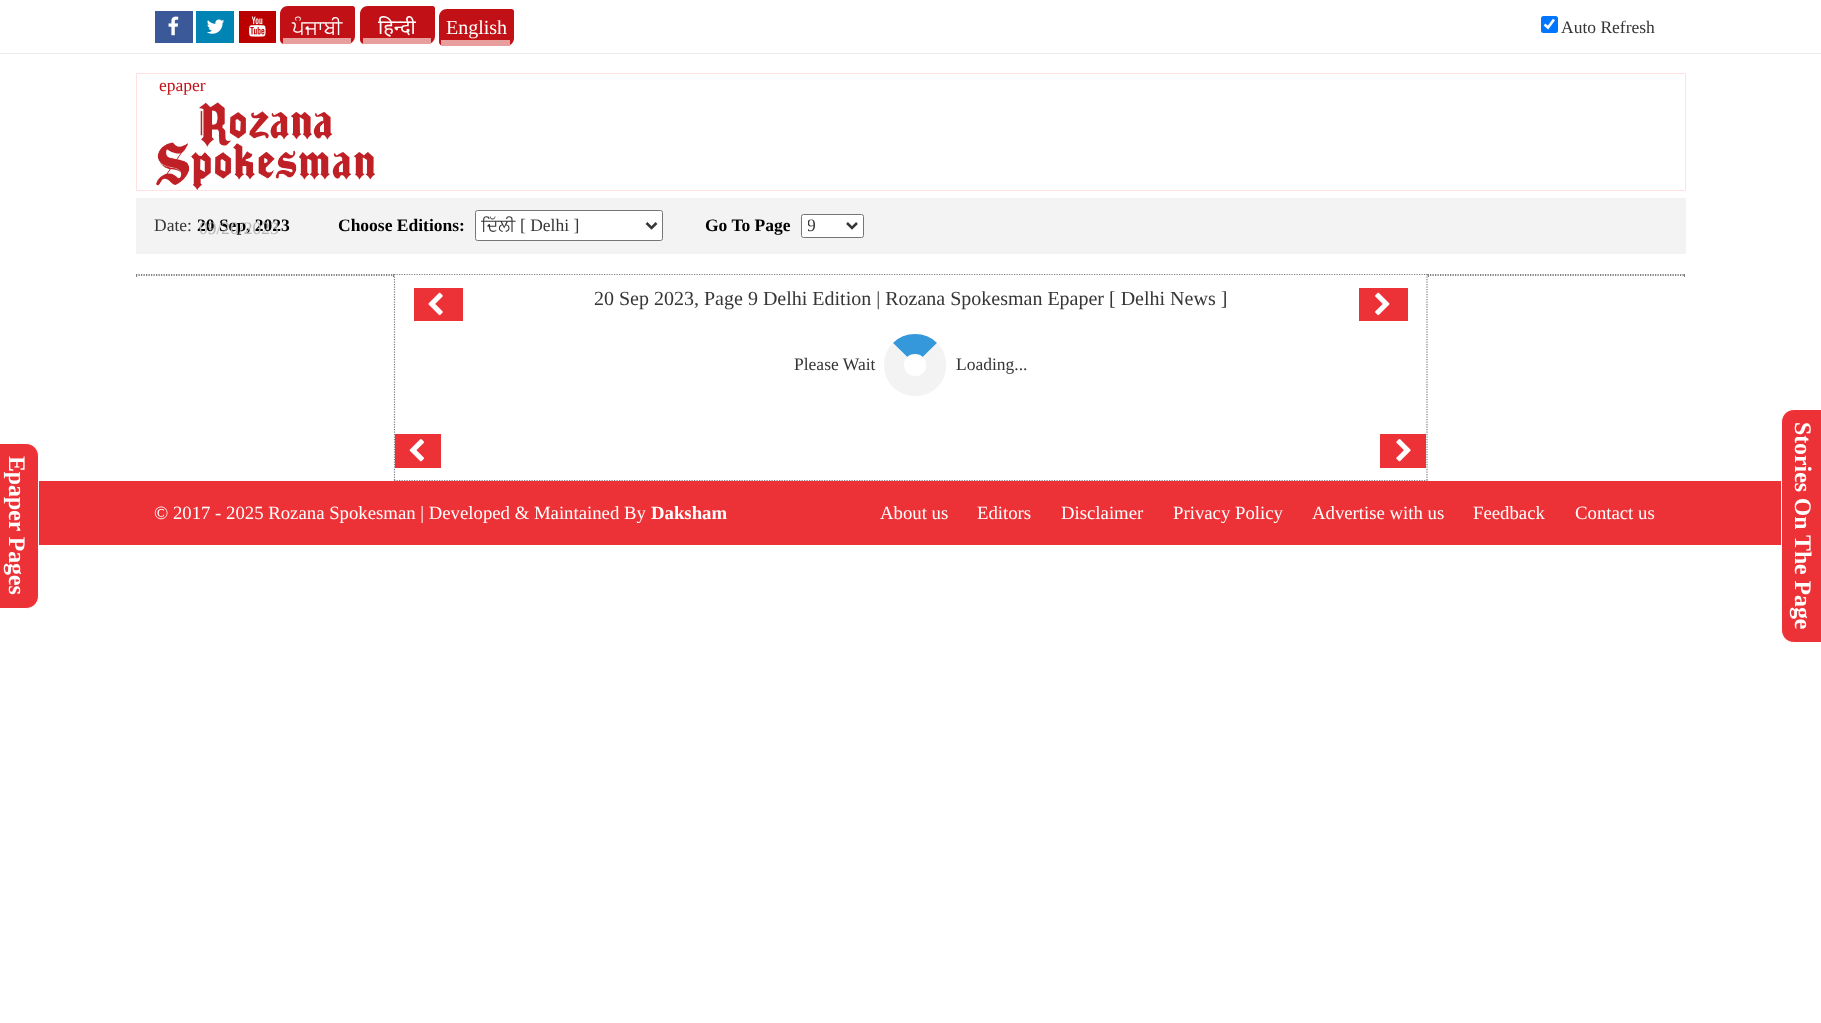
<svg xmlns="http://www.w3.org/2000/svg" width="1821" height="1023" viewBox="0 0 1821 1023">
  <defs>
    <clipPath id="clip1"><rect x="481" y="215" width="160" height="21"/></clipPath>
    <clipPath id="clip2"><rect x="808" y="215" width="35" height="21"/></clipPath>
  </defs>
  <rect width="100%" height="100%" fill="rgb(255,255,255)"/>
  <rect x="0" y="53" width="1821" height="1" fill="rgb(235,235,235)"/>
  <rect x="155" y="11" width="38" height="32" fill="rgb(59,89,152)"/>
  <image x="168" y="16" width="11" height="20" href="pic1.png"/>
  <rect x="196" y="11" width="38" height="32" fill="rgb(0,132,180)"/>
  <image x="207" y="19" width="18" height="15" href="pic2.png"/>
  <rect x="239" y="11" width="37" height="32" fill="rgb(187,0,0)"/>
  <image x="249" y="16" width="17" height="21" href="pic3.png"/>
  <path d="M288 6H352.5C354 6 355 7 355 8.5V36C355 40.5 351.5 44 347 44H284C282 44 280 42 280 40V14C280 9.5 283.5 6 288 6Z" fill="rgb(194,17,22)"/>
  <rect x="283" y="38" width="68" height="6" fill="rgb(233,158,158)"/>
  <text x="292" y="34" font-family="FreeSans" font-size="20" fill="rgb(255,255,255)">ਪੰਜਾਬੀ</text>
  <path d="M368 6H432.5C434 6 435 7 435 8.5V36C435 40.5 431.5 44 427 44H364C362 44 360 42 360 40V14C360 9.5 363.5 6 368 6Z" fill="rgb(194,17,22)"/>
  <rect x="363" y="38" width="68" height="6" fill="rgb(233,158,158)"/>
  <text x="378" y="34" font-family="Noto Sans" font-size="20" fill="rgb(255,255,255)">हिन्दी</text>
  <path d="M447 9H511.5C513 9 514 10 514 11.5V38C514 42.5 510.5 46 506 46H443C441 46 439 44 439 42V17C439 12.5 442.5 9 447 9Z" fill="rgb(194,17,22)"/>
  <rect x="441" y="40" width="69" height="6" fill="rgb(233,158,158)"/>
  <text x="446" y="34" font-family="Liberation Serif" font-size="20" fill="rgb(255,255,255)">English</text>
  <rect x="1541" y="16" width="17" height="17" rx="2.5" fill="rgb(0,117,255)"/>
  <path d="M1544.5 24.5L1548 27.5L1554 19.5" fill="none" stroke="rgb(255,255,255)" stroke-width="2.6"/>
  <text x="1561" y="33" font-family="Liberation Serif" font-size="17.5" fill="rgb(54,54,54)">Auto Refresh</text>
  <rect x="136.5" y="73.5" width="1549" height="117" fill="none" stroke="rgb(255,225,225)"/>
  <text x="159" y="91" font-family="Liberation Serif" font-size="17.5" fill="rgb(194,17,22)">epaper</text>
  <image x="156" y="102" width="219" height="88" href="pic4.png"/>
  <rect x="136" y="198" width="1550" height="56" fill="rgb(243,243,243)"/>
  <text x="154" y="231" font-family="Liberation Serif" font-size="17.5" fill="rgb(54,54,54)">Date:</text>
  <text x="197" y="231" font-family="Liberation Serif" font-size="17.5" font-weight="bold" fill="rgb(0,0,0)">20 Sep, 2023</text>
  <text x="199" y="234" font-family="Liberation Serif" font-size="17.5" fill="rgb(181,181,181)">09/20/2023</text>
  <text x="338" y="231" font-family="Liberation Serif" font-size="17.5" font-weight="bold" fill="rgb(0,0,0)">Choose Editions:</text>
  <rect x="475.5" y="210.5" width="187" height="30" rx="2" fill="rgb(255,255,255)" stroke="rgb(118,118,118)"/>
  <path d="M646.5 223L651.5 228L656.5 223" fill="none" stroke="rgb(54,54,54)" stroke-width="2.5"/>
  <g clip-path="url(#clip1)">
    <text x="481" y="231" font-family="FreeSans" font-size="17.5" fill="rgb(54,54,54)">ਦਿੱਲੀ</text>
  </g>
  <text x="520" y="231" font-family="Liberation Serif" font-size="17.5" fill="rgb(54,54,54)">[ Delhi ]</text>
  <text x="705" y="231" font-family="Liberation Serif" font-size="17.5" font-weight="bold" fill="rgb(0,0,0)">Go To Page</text>
  <rect x="801.5" y="214.5" width="62" height="23" rx="2" fill="rgb(255,255,255)" stroke="rgb(118,118,118)"/>
  <path d="M847 223L852 228L857 223" fill="none" stroke="rgb(54,54,54)" stroke-width="2.5"/>
  <g clip-path="url(#clip2)">
    <text x="807" y="231" font-family="Liberation Serif" font-size="17.5" fill="rgb(54,54,54)">9</text>
  </g>
  <path d="M136 274.5H394" fill="none" stroke="rgb(128,128,128)" stroke-width="1.2" stroke-dasharray="1.25 1.25"/>
  <rect x="393" y="274" width="1" height="3" fill="rgb(128,128,128)"/>
  <path d="M136 275.5H394" fill="none" stroke="rgb(128,128,128)" stroke-width="1.2" stroke-dasharray="1.25 1.25"/>
  <rect x="136" y="274" width="1" height="3" fill="rgb(128,128,128)"/>
  <path d="M394 274.5H1427.5" fill="none" stroke="rgb(128,128,128)" stroke-width="1.2" stroke-dasharray="1.25 1.25"/>
  <path d="M1427 274V481" fill="none" stroke="rgb(128,128,128)" stroke-width="1.2" stroke-dasharray="1.25 1.25"/>
  <path d="M1427.5 274.5H1685" fill="none" stroke="rgb(128,128,128)" stroke-width="1.2" stroke-dasharray="1.25 1.25"/>
  <rect x="1684" y="274" width="1" height="3" fill="rgb(128,128,128)"/>
  <path d="M1427.5 275.5H1685" fill="none" stroke="rgb(128,128,128)" stroke-width="1.2" stroke-dasharray="1.25 1.25"/>
  <rect x="1428" y="274" width="1" height="3" fill="rgb(128,128,128)"/>
  <rect x="39" y="481" width="1742" height="64" fill="rgb(237,50,55)"/>
  <path d="M394 480.5H1427.5" fill="none" stroke="rgb(128,128,128)" stroke-width="1.2" stroke-dasharray="1.25 1.25"/>
  <path d="M394.5 274V481" fill="none" stroke="rgb(128,128,128)" stroke-width="1.2" stroke-dasharray="1.25 1.25"/>
  <rect x="414" y="288" width="49" height="33" fill="rgb(237,50,55)"/>
  <image x="428" y="292" width="15" height="24" href="pic5.png"/>
  <text x="594" y="305" font-family="Liberation Serif" font-size="20" fill="rgb(54,54,54)">20 Sep 2023, Page 9 Delhi Edition | Rozana Spokesman Epaper [ Delhi News ]</text>
  <rect x="1359" y="288" width="49" height="33" fill="rgb(237,50,55)"/>
  <image x="1375" y="292" width="15" height="24" href="pic6.png"/>
  <text x="794" y="370" font-family="Liberation Serif" font-size="17.5" fill="rgb(54,54,54)">Please Wait</text>
  <path d="M900 350C908 342 922 342 930 350" fill="none" stroke="rgb(52,152,219)" stroke-width="20"/>
  <path d="M930 350C935 355 937 362.5 936 369C931 394 894 390.5 894 365C894 359.5 896 354 900 350" fill="none" stroke="rgb(243,243,243)" stroke-width="20"/>
  <text x="956" y="370" font-family="Liberation Serif" font-size="17.5" fill="rgb(54,54,54)">Loading...</text>
  <rect x="395" y="434" width="46" height="34" fill="rgb(237,50,55)"/>
  <image x="409" y="439" width="16" height="23" href="pic7.png"/>
  <rect x="1380" y="434" width="46" height="34" fill="rgb(237,50,55)"/>
  <image x="1396" y="439" width="15" height="23" href="pic8.png"/>
  <path d="M-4.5 443.5H26C33 443.5 38.5 449 38.5 456V596C38.5 603 33 608.5 26 608.5H-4.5Z" fill="rgb(237,50,55)" stroke="rgb(255,255,255)"/>
  <text x="9" y="456" transform="rotate(90 9 456)" font-family="Liberation Serif" font-size="23.75" font-weight="bold" fill="rgb(255,255,255)">Epaper Pages</text>
  <path d="M1794 409.5H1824.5V642.5H1794C1787 642.5 1781.5 637 1781.5 630V422C1781.5 415 1787 409.5 1794 409.5Z" fill="rgb(237,50,55)" stroke="rgb(255,255,255)"/>
  <text x="1795" y="422" transform="rotate(90 1795 422)" font-family="Liberation Serif" font-size="23.75" font-weight="bold" fill="rgb(255,255,255)">Stories On The Page</text>
  <text x="154" y="519" font-family="Liberation Serif" font-size="18.75" fill="rgb(255,255,255)">© 2017 - 2025 Rozana Spokesman | Developed &amp; Maintained By</text>
  <text x="651" y="519" font-family="Liberation Serif" font-size="18.75" font-weight="bold" fill="rgb(255,255,255)">Daksham</text>
  <g font-family="Liberation Serif" font-size="18.75" fill="rgb(255,255,255)">
    <text x="880" y="519">About us</text>
    <text x="977" y="519">Editors</text>
    <text x="1061" y="519">Disclaimer</text>
    <text x="1173" y="519">Privacy Policy</text>
    <text x="1312" y="519">Advertise with us</text>
    <text x="1473" y="519">Feedback</text>
    <text x="1575" y="519">Contact us</text>
  </g>
</svg>
